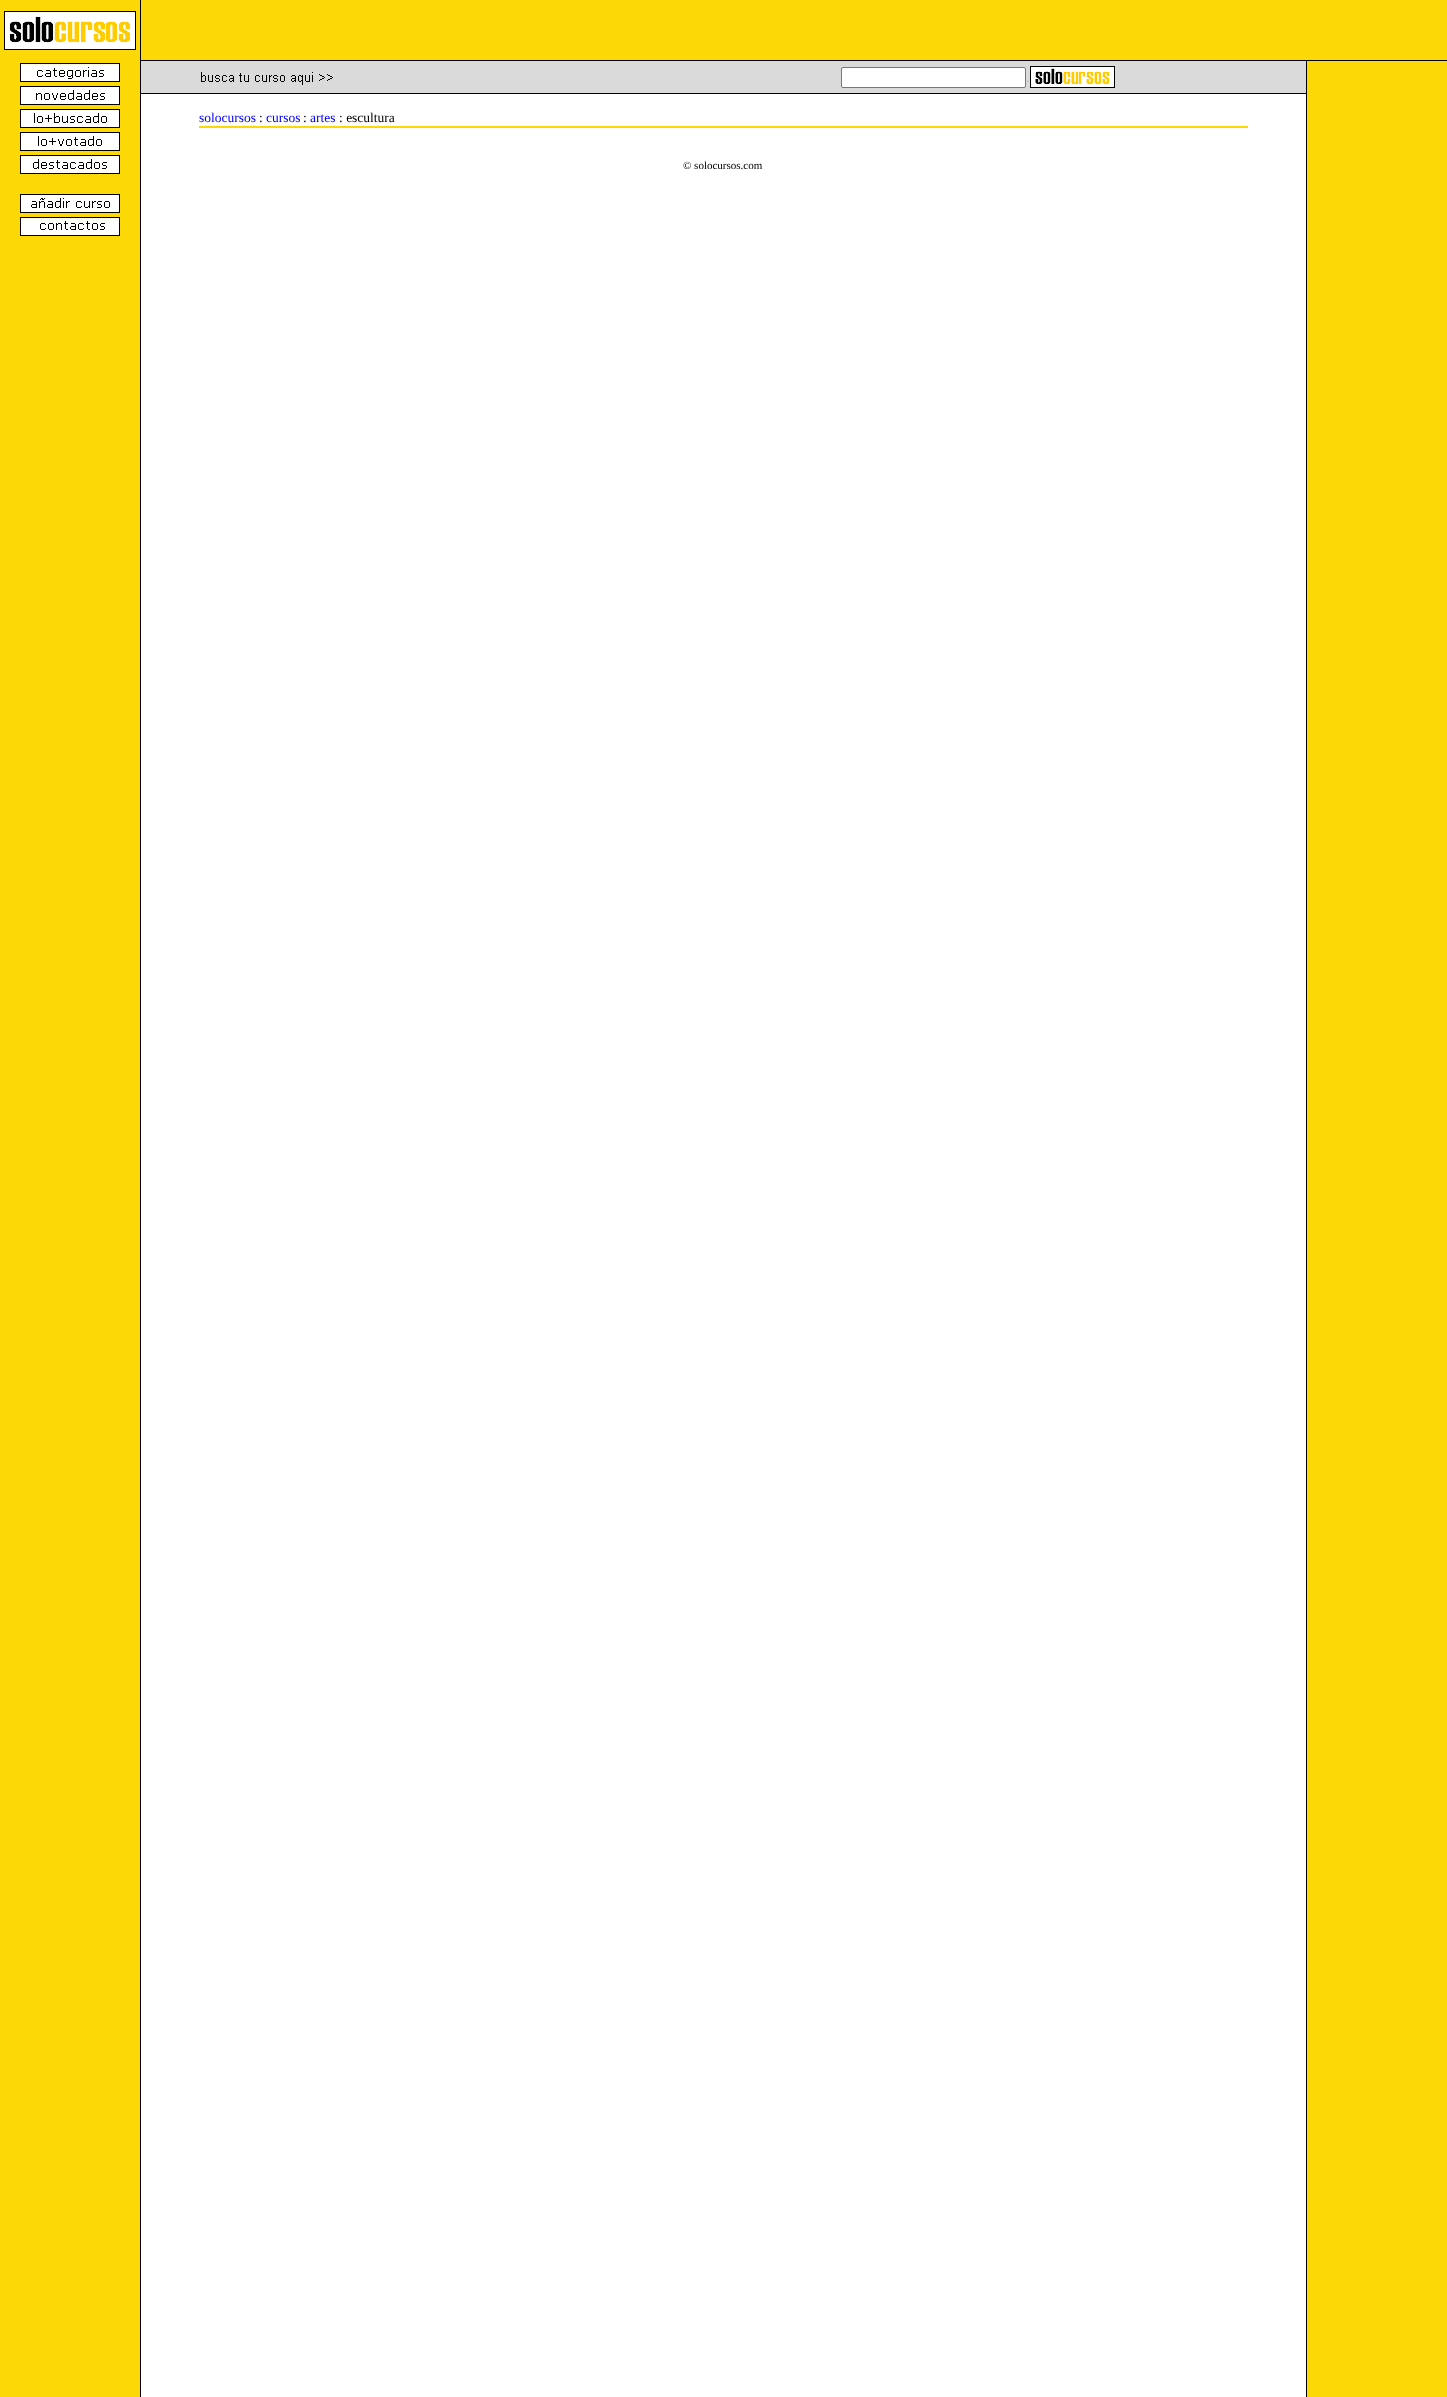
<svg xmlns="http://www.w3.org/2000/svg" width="1447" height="2397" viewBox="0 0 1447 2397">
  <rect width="100%" height="100%" fill="rgb(255,255,255)"/>
  <rect x="0" y="0" width="140" height="2397" fill="rgb(252,216,7)"/>
  <image x="4" y="11" width="132" height="39" href="pic1.png"/>
  <rect x="140" y="0" width="1" height="2397" fill="rgb(0,0,0)"/>
  <rect x="141" y="0" width="1306" height="60" fill="rgb(252,216,7)"/>
  <rect x="141" y="60" width="1306" height="1" fill="rgb(0,0,0)"/>
  <image x="20" y="63" width="100" height="19" href="pic2.png"/>
  <image x="20" y="86" width="100" height="19" href="pic3.png"/>
  <image x="20" y="109" width="100" height="19" href="pic4.png"/>
  <image x="20" y="132" width="100" height="19" href="pic5.png"/>
  <image x="20" y="155" width="100" height="19" href="pic6.png"/>
  <image x="20" y="194" width="100" height="19" href="pic7.png"/>
  <image x="20" y="217" width="100" height="19" href="pic8.png"/>
  <rect x="141" y="61" width="1165" height="32" fill="rgb(218,218,218)"/>
  <image x="201" y="72" width="132" height="13" href="pic9.png"/>
  <rect x="841.5" y="67.5" width="184" height="20" rx="1.5" fill="rgb(255,255,255)" stroke="rgb(118,118,118)"/>
  <text x="1026" y="82" font-family="Liberation Serif" font-size="16" fill="rgb(192,192,192)">.</text>
  <image x="1030" y="66" width="85" height="22" href="pic10.png"/>
  <rect x="141" y="93" width="1165" height="1" fill="rgb(0,0,0)"/>
  <text x="199" y="122" font-family="Liberation Serif" font-size="13.5" fill="rgb(0,0,255)">solocursos</text>
  <text x="259" y="122" font-family="Liberation Serif" font-size="13.5" fill="rgb(0,0,0)">:</text>
  <text x="266" y="122" font-family="Liberation Serif" font-size="13.5" fill="rgb(0,0,255)">cursos</text>
  <text x="303" y="122" font-family="Liberation Serif" font-size="13.5" fill="rgb(0,0,0)">:</text>
  <text x="310" y="122" font-family="Liberation Serif" font-size="13.5" fill="rgb(0,0,255)">artes</text>
  <text x="339" y="122" font-family="Liberation Serif" font-size="13.5" fill="rgb(0,0,0)">: escultura</text>
  <rect x="199" y="126" width="1049" height="2" fill="rgb(252,216,7)"/>
  <text x="683" y="169" font-family="Liberation Serif" font-size="11" fill="rgb(0,0,0)">© solocursos.com</text>
  <rect x="1306" y="61" width="1" height="2336" fill="rgb(0,0,0)"/>
  <rect x="1307" y="61" width="140" height="2336" fill="rgb(252,216,7)"/>
</svg>
